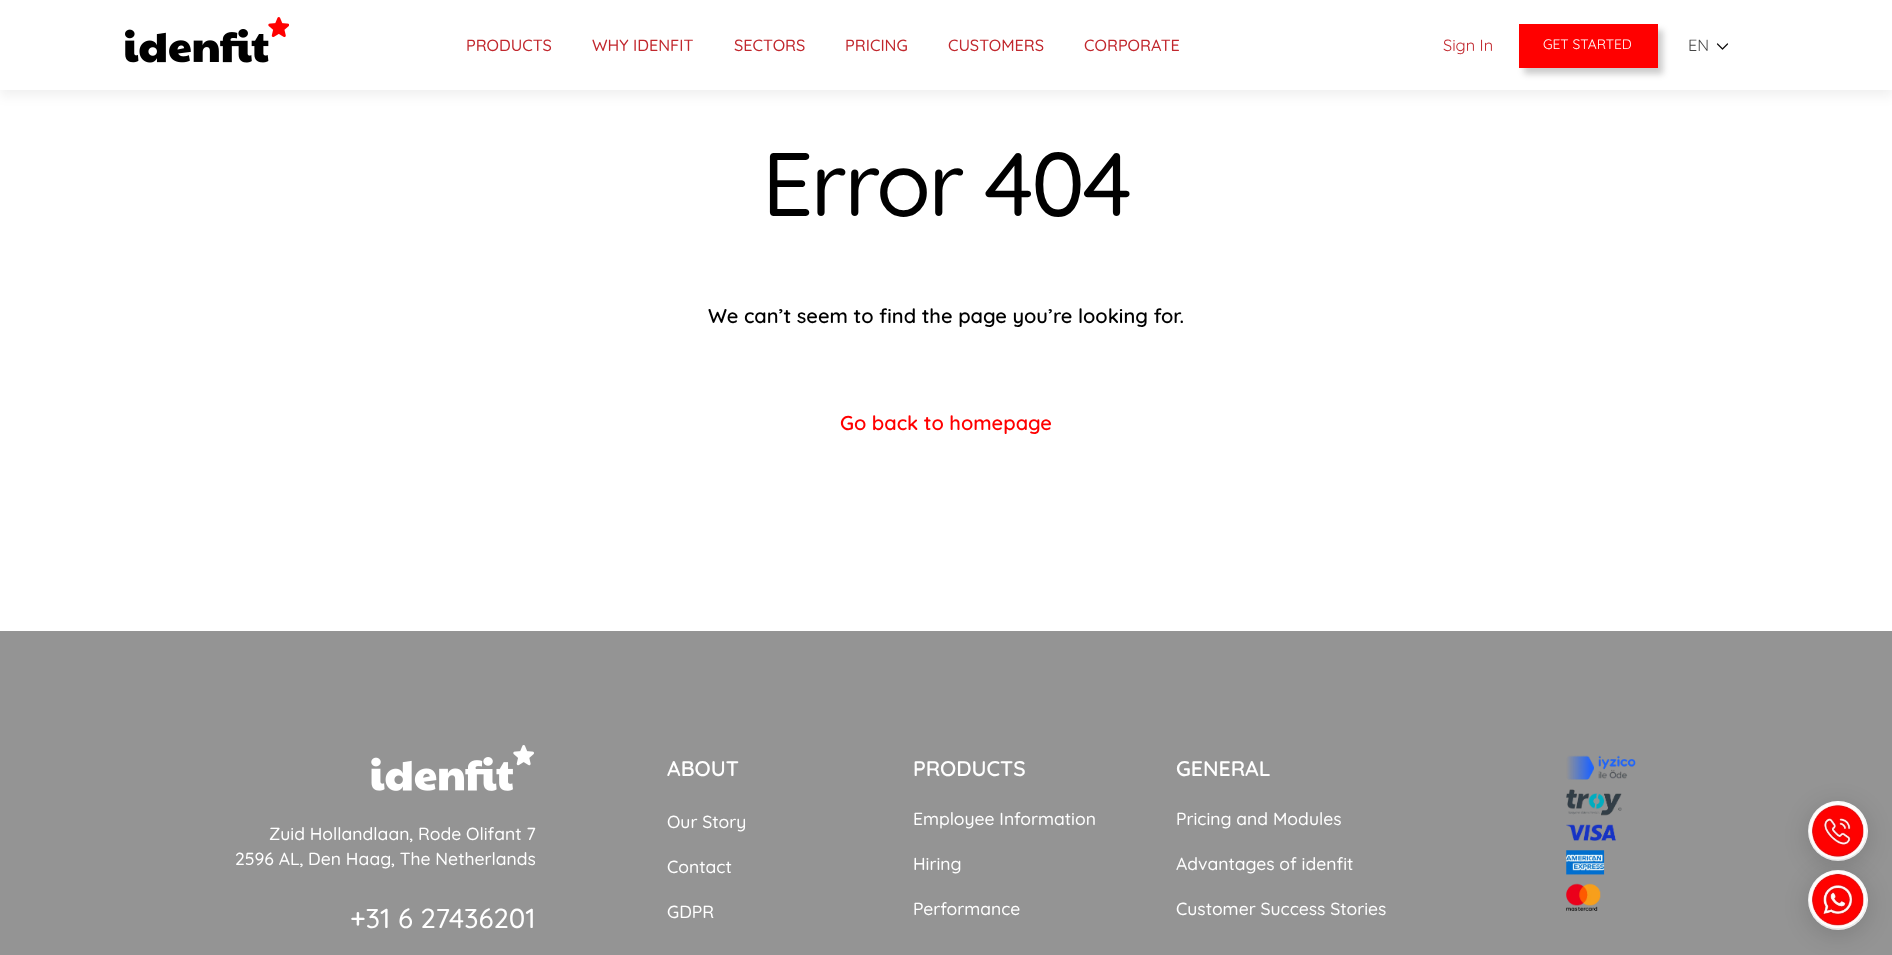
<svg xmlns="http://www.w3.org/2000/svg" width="1892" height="955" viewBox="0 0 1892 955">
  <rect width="100%" height="100%" fill="rgb(255,255,255)"/>
  <rect x="0" y="6" width="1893" height="90" fill="rgba(0,0,0,0.06)" filter="blur(6px)"/>
  <rect x="0" y="0" width="1892" height="90" fill="rgb(255,255,255)"/>
  <image x="125" y="17" width="164" height="46" href="pic1.png"/>
  <g font-family="Quicksand" font-size="16.25" font-weight="500" fill="rgb(193,39,45)">
    <text x="466" y="51">PRODUCTS</text>
    <text x="592" y="51">WHY IDENFIT</text>
    <text x="734" y="51">SECTORS</text>
    <text x="845" y="51">PRICING</text>
    <text x="948" y="51">CUSTOMERS</text>
    <text x="1084" y="51">CORPORATE</text>
  </g>
  <text x="1443" y="51" font-family="Quicksand" font-size="16.25" fill="rgb(193,39,45)">Sign In</text>
  <rect x="1524" y="30" width="139" height="44" fill="rgba(0,0,0,0.2)" filter="blur(3px)"/>
  <rect x="1519" y="24" width="139" height="44" fill="rgb(255,0,0)"/>
  <text x="1543" y="49" font-family="Quicksand" font-size="13.75" fill="rgb(255,255,255)">GET STARTED</text>
  <text x="1688" y="51" font-family="Quicksand" font-size="16.25" fill="rgb(69,69,69)">EN</text>
  <path d="M1717.5 44L1722.5 49L1727.5 44" fill="none" stroke="rgb(15,14,14)" stroke-width="1.2" stroke-linecap="round" stroke-linejoin="round"/>
  <text x="762" y="216" font-family="Quicksand" font-size="90" font-weight="500" letter-spacing="-2.5" fill="rgb(0,0,0)">Error 404</text>
  <text x="708" y="323" font-family="Quicksand" font-size="20" font-weight="600" fill="rgb(0,0,0)">We can’t seem to find the page you’re looking for.</text>
  <text x="840" y="430" font-family="Quicksand" font-size="20" font-weight="600" fill="rgb(255,0,0)">Go back to homepage</text>
  <rect x="0" y="631" width="1892" height="324" fill="rgb(148,148,148)"/>
  <image x="371" y="745" width="163" height="46" href="pic2.png"/>
  <g font-family="Quicksand" font-size="17.5" font-weight="500" fill="rgb(255,255,255)">
    <text x="269" y="840">Zuid Hollandlaan, Rode Olifant 7</text>
    <text x="235" y="865">2596 AL, Den Haag, The Netherlands</text>
  </g>
  <text x="350" y="928" font-family="Quicksand" font-size="27.5" font-weight="500" fill="rgb(255,255,255)">+31 6 27436201</text>
  <text x="667" y="776" font-family="Quicksand" font-size="21.25" font-weight="600" fill="rgb(255,255,255)">ABOUT</text>
  <g font-family="Quicksand" font-size="17.5" font-weight="500" fill="rgb(255,255,255)">
    <text x="667" y="828">Our Story</text>
    <text x="667" y="873">Contact</text>
    <text x="667" y="918">GDPR</text>
  </g>
  <text x="913" y="776" font-family="Quicksand" font-size="21.25" font-weight="600" fill="rgb(255,255,255)">PRODUCTS</text>
  <g font-family="Quicksand" font-size="17.5" font-weight="500" fill="rgb(255,255,255)">
    <text x="913" y="825">Employee Information</text>
    <text x="913" y="870">Hiring</text>
    <text x="913" y="915">Performance</text>
  </g>
  <text x="1176" y="776" font-family="Quicksand" font-size="21.25" font-weight="600" fill="rgb(255,255,255)">GENERAL</text>
  <g font-family="Quicksand" font-size="17.5" font-weight="500" fill="rgb(255,255,255)">
    <text x="1176" y="825">Pricing and Modules</text>
    <text x="1176" y="870">Advantages of idenfit</text>
    <text x="1176" y="915">Customer Success Stories</text>
  </g>
  <image x="1566" y="755" width="70" height="156" href="pic3.png"/>
  <rect x="1808" y="806" width="60" height="60" rx="30" fill="rgba(0,0,0,0.15)" filter="blur(12.5px)"/>
  <circle cx="1838" cy="831" r="30" fill="rgb(255,255,255)"/>
  <image x="1808" y="802" width="59" height="59" href="pic4.png"/>
  <rect x="1808" y="875" width="60" height="60" rx="30" fill="rgba(0,0,0,0.15)" filter="blur(12.5px)"/>
  <circle cx="1838" cy="900" r="30" fill="rgb(255,255,255)"/>
  <image x="1808" y="870" width="59" height="60" href="pic5.png"/>
</svg>
